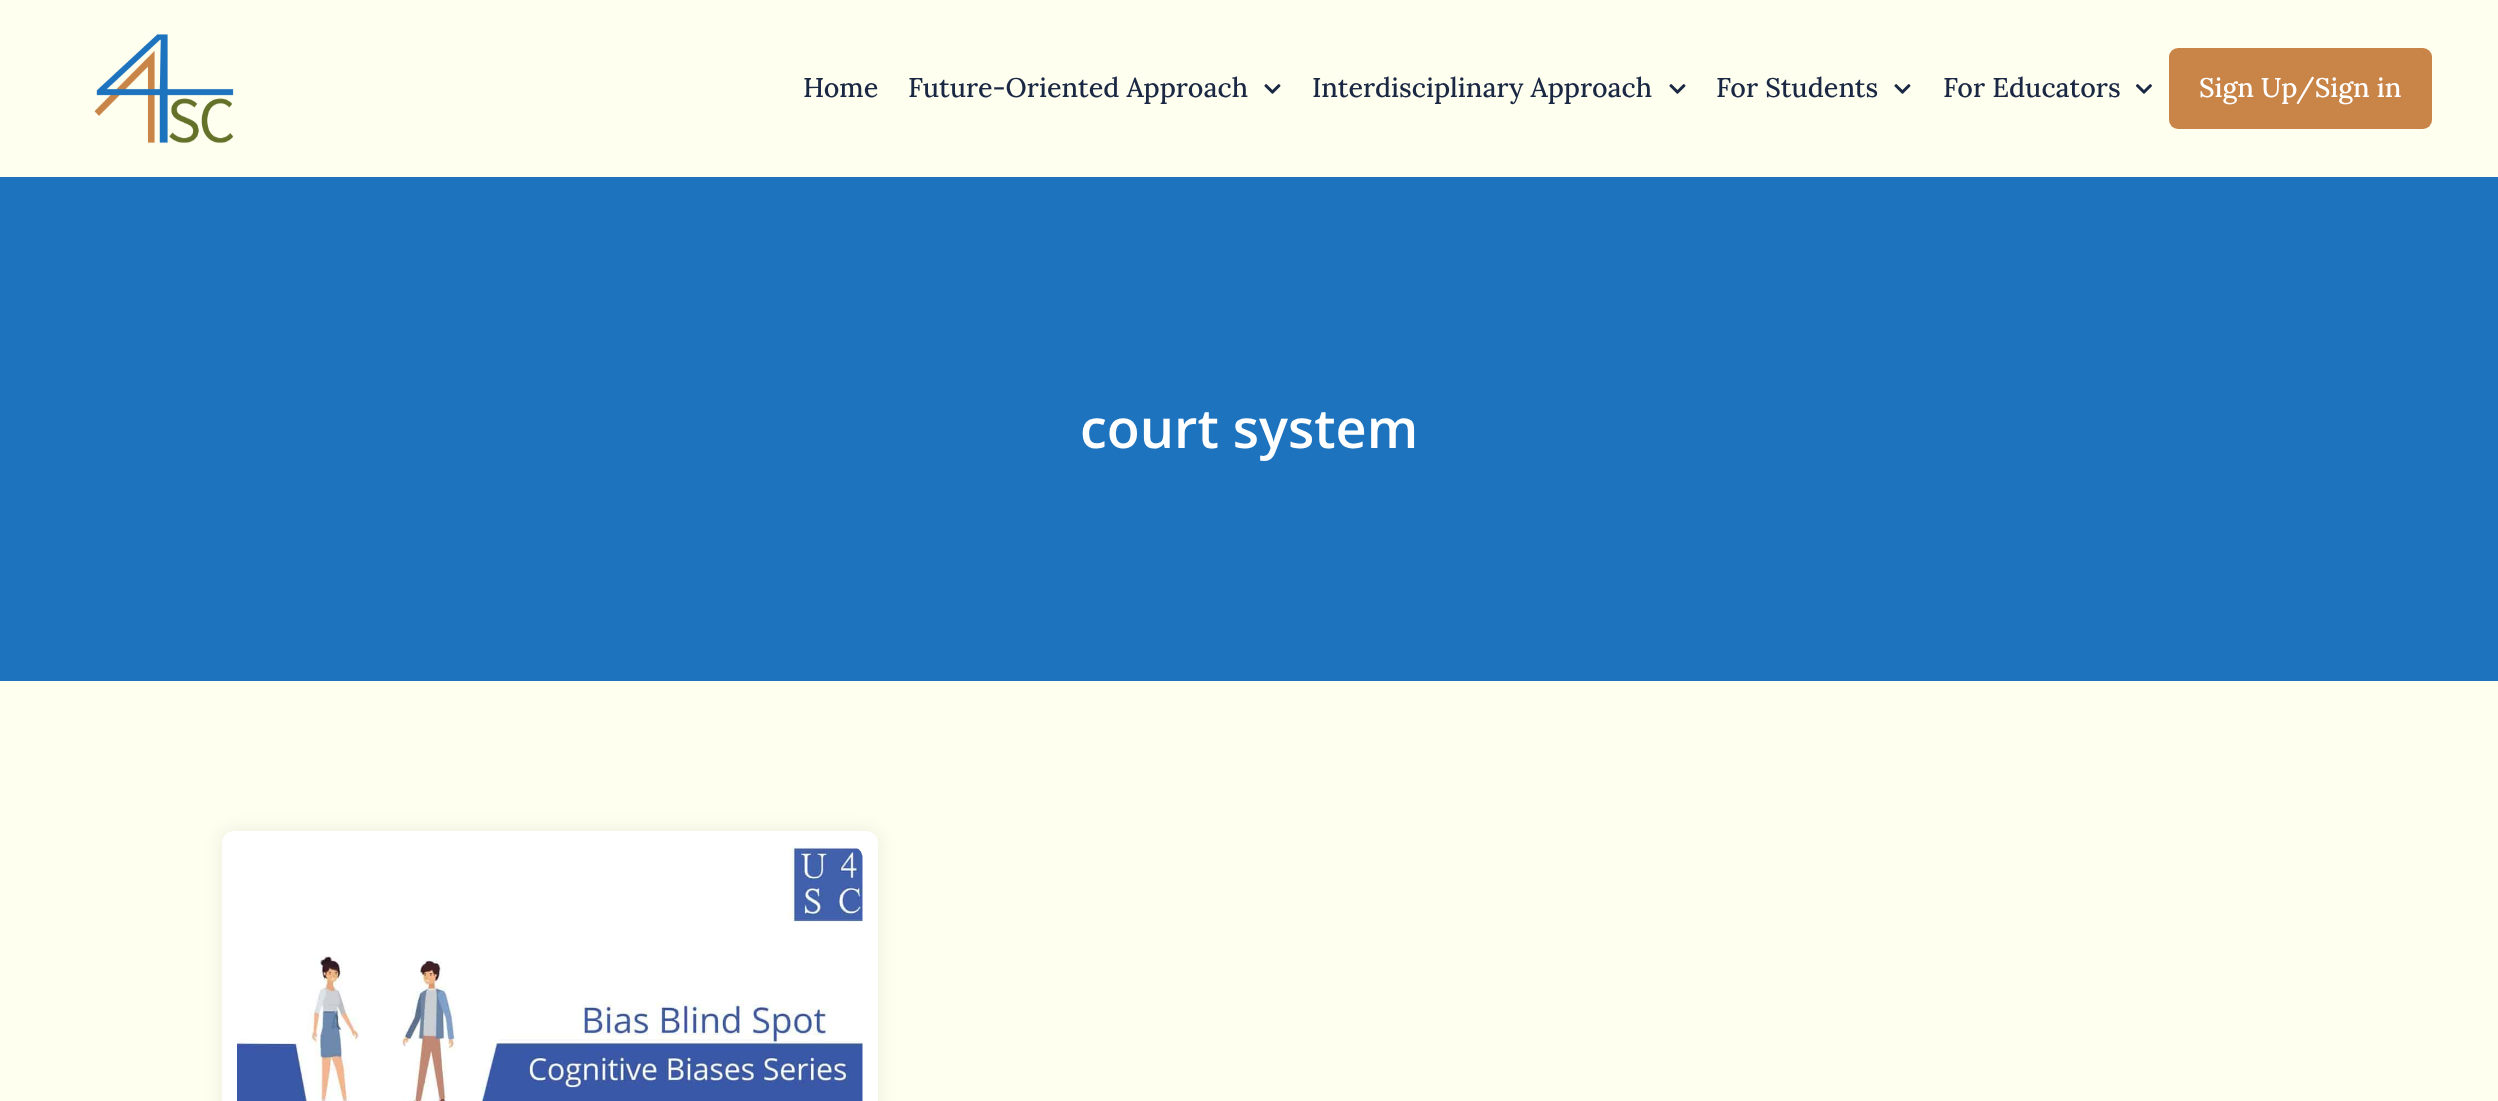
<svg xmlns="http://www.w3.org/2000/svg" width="2498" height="1101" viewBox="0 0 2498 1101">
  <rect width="100%" height="100%" fill="rgb(255,255,240)"/>
  <image x="94" y="34" width="140" height="110" href="pic1.png"/>
  <g font-family="Lora" font-size="27" font-weight="500" fill="rgb(26,40,68)">
    <text x="803" y="97">Home</text>
    <text x="908" y="97">Future-Oriented Approach</text>
  </g>
  <image x="1264" y="84" width="17" height="10" href="pic2.png"/>
  <text x="1312" y="97" font-family="Lora" font-size="27" font-weight="500" fill="rgb(26,40,68)">Interdisciplinary Approach</text>
  <image x="1669" y="84" width="17" height="10" href="pic2.png"/>
  <text x="1716" y="97" font-family="Lora" font-size="27" font-weight="500" fill="rgb(26,40,68)">For Students</text>
  <image x="1894" y="84" width="17" height="10" href="pic2.png"/>
  <text x="1943" y="97" font-family="Lora" font-size="27" font-weight="500" fill="rgb(26,40,68)">For Educators</text>
  <image x="2135" y="84" width="17" height="10" href="pic3.png"/>
  <rect x="2169" y="48" width="263" height="81" rx="9" fill="rgb(201,133,72)"/>
  <text x="2199" y="97" font-family="Lora" font-size="27" font-weight="500" fill="rgb(255,255,255)">Sign Up/Sign in</text>
  <rect x="0" y="177" width="2498" height="504" fill="rgb(30,115,190)"/>
  <text x="1080" y="448" font-family="Open Sans" font-size="54" font-weight="600" fill="rgb(255,255,255)">court system</text>
  <rect x="218" y="827" width="664" height="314" rx="17" fill="rgba(0,0,0,0.05)" filter="blur(7.5px)"/>
  <rect x="229.5" y="838.5" width="641" height="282" rx="4.5" fill="rgb(255,255,255)" stroke="rgb(255,255,255)" stroke-width="15"/>
  <image x="237" y="846" width="626" height="255" href="pic4.png"/>
</svg>
